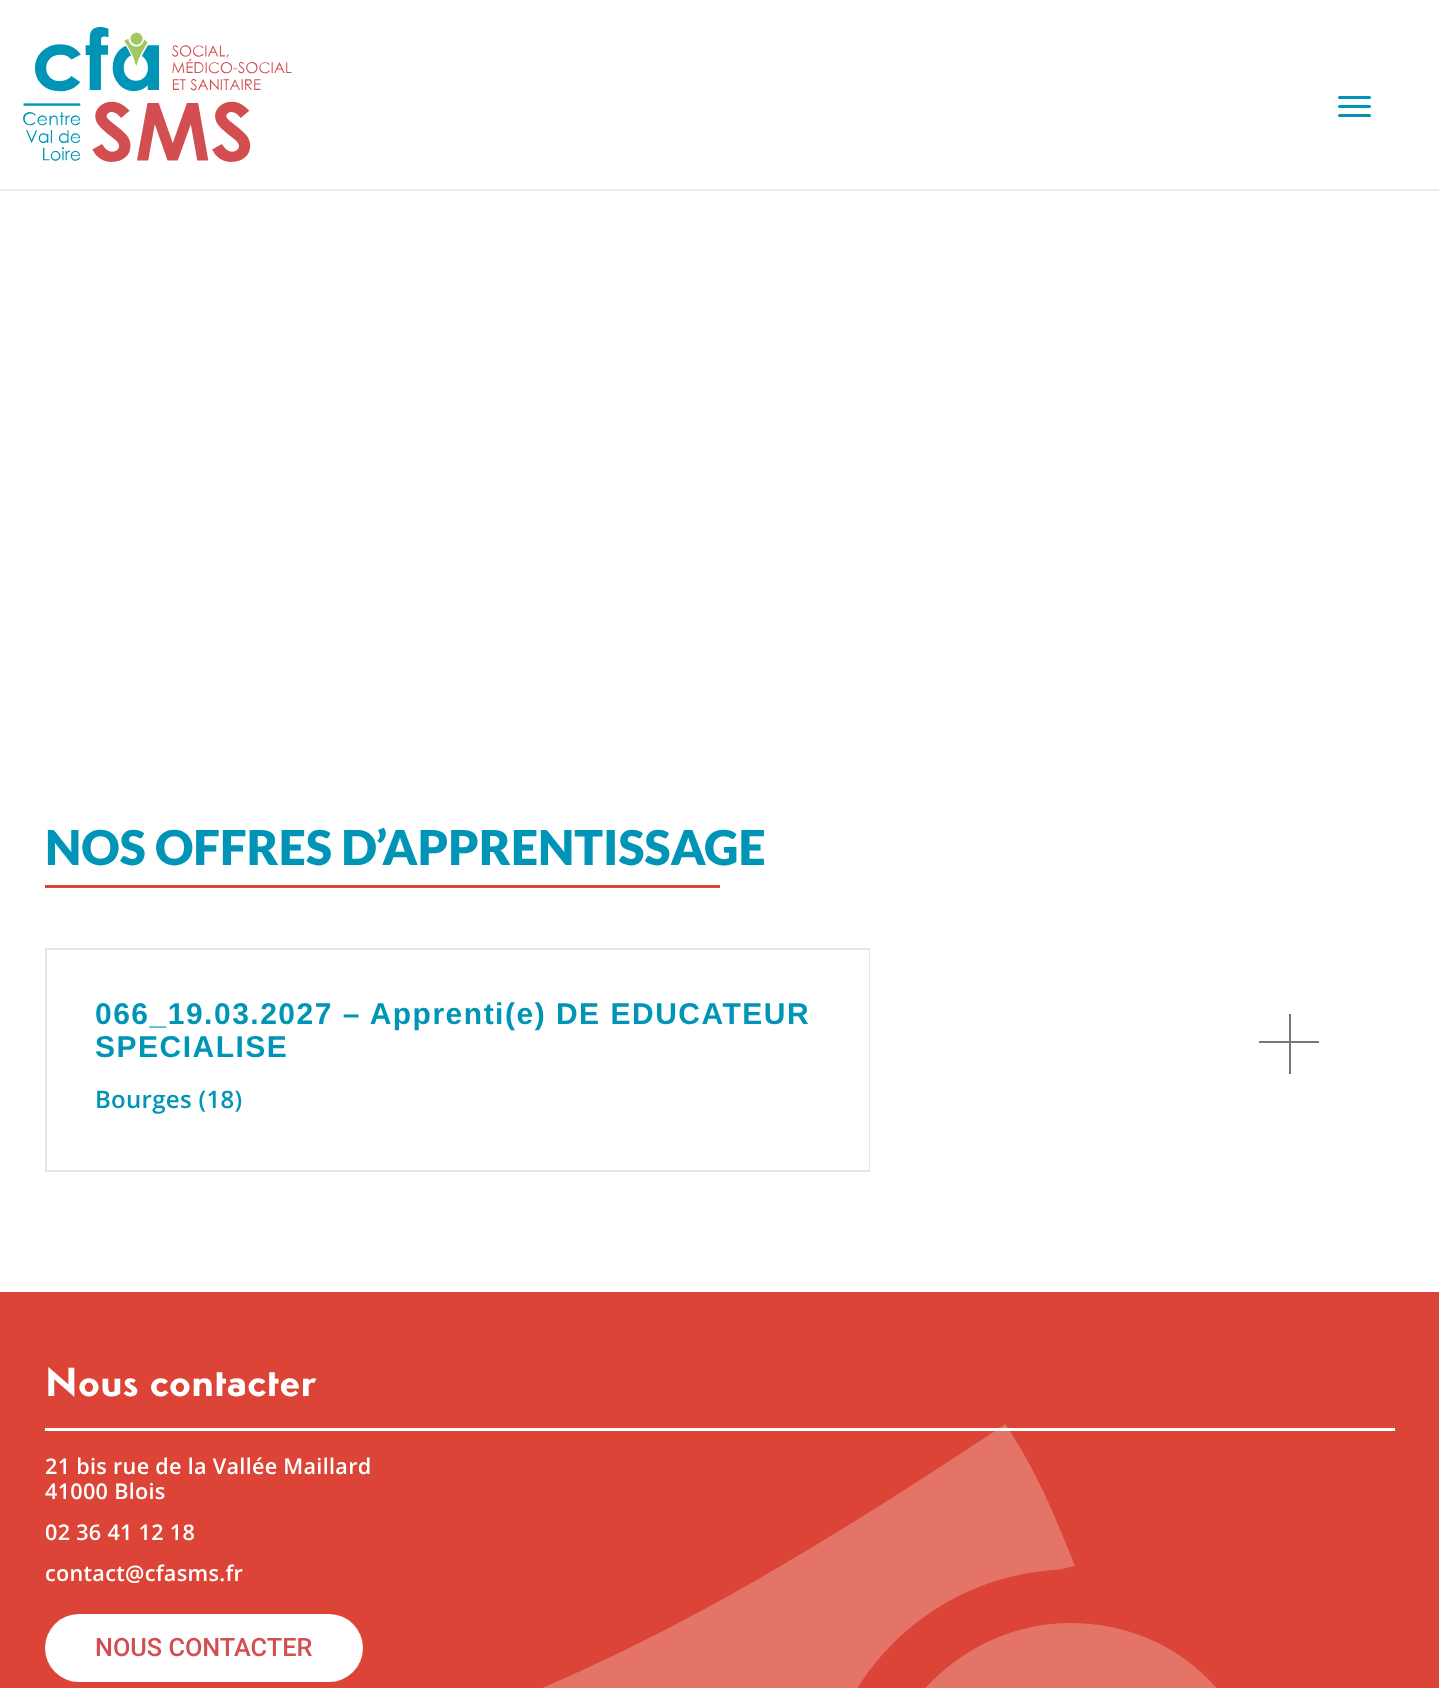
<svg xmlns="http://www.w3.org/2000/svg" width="1439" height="1688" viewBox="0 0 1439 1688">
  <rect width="100%" height="100%" fill="rgb(255,255,255)"/>
  <rect x="0" y="189" width="1439" height="2" fill="rgb(236,236,236)"/>
  <image x="23" y="27" width="269" height="135" href="pic1.png"/>
  <rect x="1338" y="96" width="33" height="3" rx="1.5" fill="rgb(0,149,182)"/>
  <rect x="1338" y="105" width="33" height="3" rx="1.5" fill="rgb(0,149,182)"/>
  <rect x="1338" y="114" width="33" height="3" rx="1.5" fill="rgb(0,149,182)"/>
  <text x="45" y="865" font-family="Lato" font-size="48" font-weight="900" fill="rgb(0,149,182)">NOS OFFRES D’APPRENTISSAGE</text>
  <rect x="45" y="885" width="675" height="3" fill="rgb(219,68,54)"/>
  <rect x="46" y="949" width="823" height="222" fill="none" stroke="rgb(229,229,229)" stroke-width="2"/>
  <rect x="868" y="950" width="1" height="220" fill="rgb(255,255,255)"/>
  <g font-family="Liberation Sans" font-size="30" font-weight="bold" letter-spacing="1.5" fill="rgb(0,149,182)">
    <text>
      <tspan x="95" y="1024">066_19.03.2027 – Apprenti(e) DE EDUCATEUR</tspan>
      <tspan x="95" y="1057">SPECIALISE</tspan>
    </text>
  </g>
  <rect x="1289" y="1014" width="2" height="60" fill="rgb(119,119,119)"/>
  <rect x="1259" y="1041" width="60" height="2" fill="rgb(119,119,119)"/>
  <text x="95" y="1108" font-family="Open Sans" font-size="24" font-weight="600" letter-spacing="0.3" fill="rgb(0,149,182)">Bourges (18)</text>
  <rect x="0" y="1292" width="1439" height="396" fill="rgb(219,68,54)"/>
  <image x="542" y="1424" width="675" height="264" href="pic2.png"/>
  <rect x="45" y="1428" width="1350" height="3" fill="rgb(255,255,255)"/>
  <text x="45" y="1396" font-family="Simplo" font-size="42" font-weight="bold" letter-spacing="0.3" fill="rgb(255,255,255)">Nous contacter</text>
  <g font-family="Open Sans" font-size="21.6" font-weight="600" letter-spacing="0.3" fill="rgb(255,255,255)">
    <text>
      <tspan x="45" y="1474">21 bis rue de la Vallée Maillard</tspan>
      <tspan x="45" y="1499">41000 Blois</tspan>
      <tspan x="45" y="1540">02 36 41 12 18</tspan>
      <tspan x="45" y="1581">contact@cfasms.fr</tspan>
    </text>
  </g>
  <rect x="45" y="1614" width="318" height="68" rx="34" fill="rgb(255,255,255)"/>
  <text x="95" y="1656" font-family="Roboto" font-size="25.25" font-weight="500" fill="rgb(210,78,80)">NOUS CONTACTER</text>
</svg>
